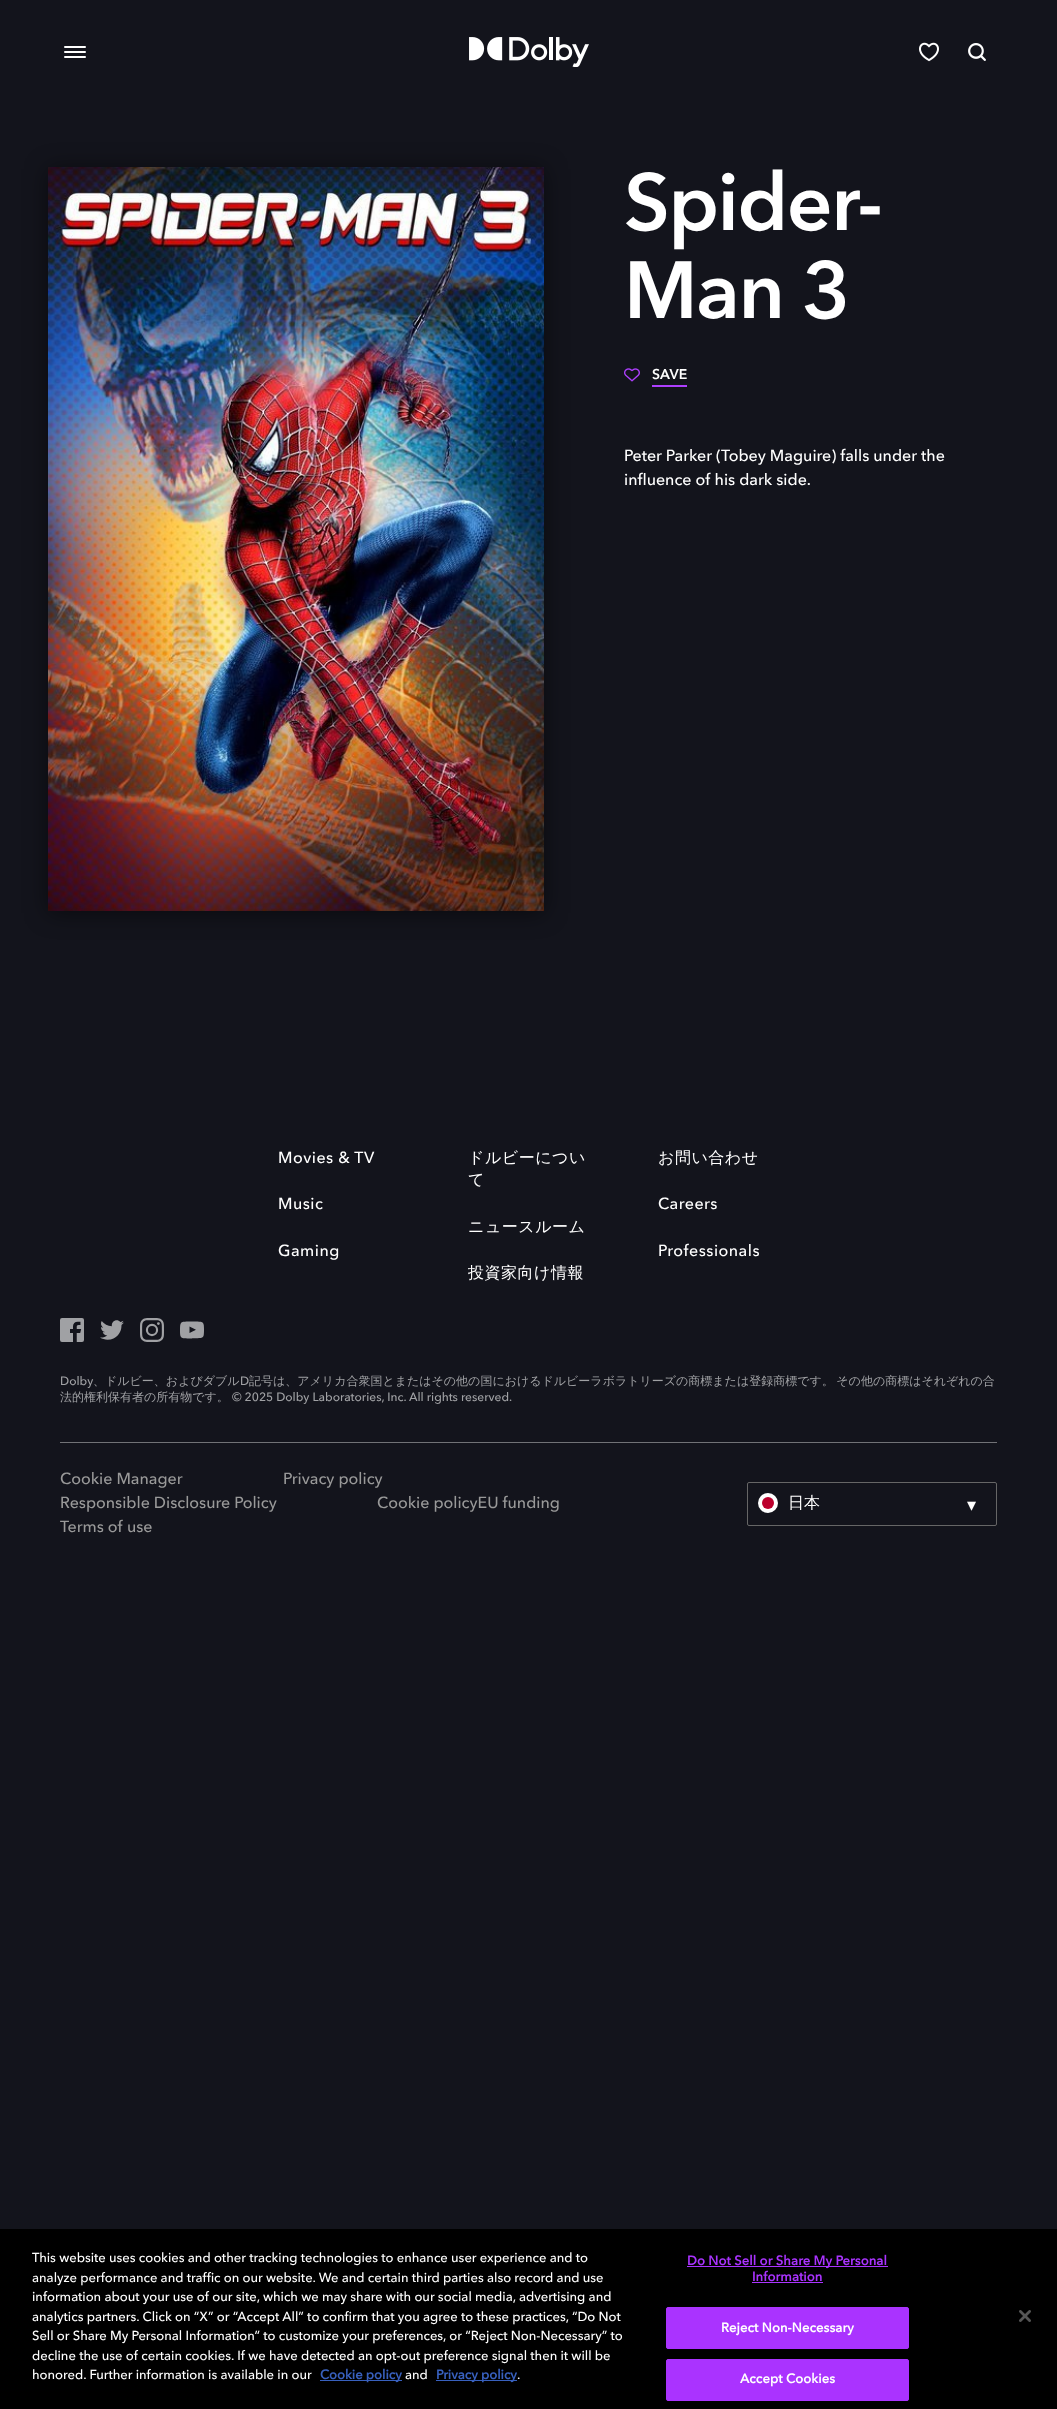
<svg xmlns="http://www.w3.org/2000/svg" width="1057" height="2409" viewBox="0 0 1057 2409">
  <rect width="100%" height="100%" fill="rgb(19,20,28)"/>
  <rect x="64" y="46" width="22" height="2" rx="1" fill="rgb(255,255,255)"/>
  <rect x="64" y="51" width="22" height="2" rx="1" fill="rgb(255,255,255)"/>
  <rect x="64" y="56" width="22" height="2" rx="1" fill="rgb(255,255,255)"/>
  <image x="469" y="37" width="120" height="30" href="pic1.png"/>
  <image x="919" y="42" width="20" height="20" href="pic2.png"/>
  <image x="968" y="43" width="18" height="18" href="pic3.png"/>
  <rect x="48" y="169" width="496" height="744" fill="rgba(0,0,0,0.5)" filter="blur(11.5px)"/>
  <image x="48" y="167" width="496" height="744" href="pic4.png"/>
  <g font-family="Avenir Next" font-size="80" font-weight="600" letter-spacing="-1.5" fill="rgb(255,255,255)">
    <text>
      <tspan x="624" y="230">Spider-</tspan>
      <tspan x="624" y="318">Man 3</tspan>
    </text>
  </g>
  <image x="624" y="368" width="16" height="14" href="pic5.png"/>
  <text x="652" y="379" font-family="Avenir Next" font-size="14" font-weight="600" fill="rgb(255,255,255)">SAVE</text>
  <rect x="652" y="385" width="35" height="2" fill="rgb(174,63,255)"/>
  <g font-family="Avenir Next" font-size="16" font-weight="500" fill="rgb(255,255,255)">
    <text>
      <tspan x="624" y="461">Peter Parker (Tobey Maguire) falls under the</tspan>
      <tspan x="624" y="485">influence of his dark side.</tspan>
    </text>
  </g>
  <g font-family="Avenir Next" font-size="16" font-weight="500" letter-spacing="0.5" fill="rgb(255,255,255)">
    <text x="278" y="1163">Movies &amp; TV</text>
    <text x="278" y="1209">Music</text>
    <text x="278" y="1256">Gaming</text>
  </g>
  <g font-family="WenQuanYi Zen Hei" font-size="16" font-weight="500" letter-spacing="0.5" fill="rgb(255,255,255)">
    <text>
      <tspan x="468" y="1163">ドルビーについ</tspan>
      <tspan x="468" y="1185">て</tspan>
    </text>
    <text x="468" y="1232">ニュースルーム</text>
    <text x="468" y="1278">投資家向け情報</text>
    <text x="658" y="1163">お問い合わせ</text>
  </g>
  <g font-family="Avenir Next" font-size="16" font-weight="500" letter-spacing="0.5" fill="rgb(255,255,255)">
    <text x="658" y="1209">Careers</text>
    <text x="658" y="1256">Professionals</text>
  </g>
  <image x="60" y="1318" width="24" height="24" href="pic6.png"/>
  <image x="100" y="1320" width="24" height="20" href="pic7.png"/>
  <image x="140" y="1318" width="24" height="24" href="pic8.png"/>
  <image x="180" y="1321" width="24" height="18" href="pic9.png"/>
  <text x="60" y="1385" font-family="Avenir Next" font-size="12" font-weight="500" fill="rgb(160,161,164)">Dolby</text>
  <text x="93" y="1385" font-family="WenQuanYi Zen Hei" font-size="12" font-weight="500" fill="rgb(160,161,164)">、ドルビー、およびダブル</text>
  <text x="240" y="1385" font-family="Avenir Next" font-size="12" font-weight="500" fill="rgb(160,161,164)">D</text>
  <g font-family="WenQuanYi Zen Hei" font-size="12" font-weight="500" fill="rgb(160,161,164)">
    <text x="249" y="1385" word-spacing="-1">記号は、アメリカ合衆国とまたはその他の国におけるドルビーラボラトリーズの商標または登録商標です。 その他の商標はそれぞれの合</text>
    <text x="60" y="1401">法的権利保有者の所有物です。</text>
  </g>
  <text x="232" y="1401" font-family="Avenir Next" font-size="12" font-weight="500" fill="rgb(160,161,164)">© 2025 Dolby Laboratories, Inc. All rights reserved.</text>
  <rect x="60" y="1442" width="937" height="1" fill="rgb(113,114,118)"/>
  <g font-family="Avenir Next" font-size="16" font-weight="500" fill="rgb(153,153,153)">
    <text x="60" y="1484">Cookie Manager</text>
    <text x="283" y="1484">Privacy policy</text>
    <text x="60" y="1508">Responsible Disclosure Policy</text>
    <text x="377" y="1508">Cookie policyEU funding</text>
    <text x="60" y="1532">Terms of use</text>
  </g>
  <rect x="747.5" y="1482.5" width="249" height="43" rx="1.5" fill="none" stroke="rgb(102,102,102)"/>
  <circle cx="768" cy="1503" r="10" fill="rgb(255,255,255)"/>
  <circle cx="768" cy="1503" r="6" fill="rgb(188,0,45)"/>
  <text x="788" y="1508" font-family="WenQuanYi Zen Hei" font-size="16" font-weight="500" fill="rgb(255,255,255)">日本</text>
  <text x="967" y="1511" font-family="DejaVu Sans" font-size="18" fill="rgb(255,255,255)">▾</text>
  <rect x="0" y="2229" width="1057" height="180" fill="rgb(0,0,0)"/>
  <g font-family="Avenir Next" font-size="13" font-weight="500" fill="rgb(255,255,255)">
    <text>
      <tspan x="32" y="2262">This website uses cookies and other tracking technologies to enhance user experience and to</tspan>
      <tspan x="32" y="2282">analyze performance and traffic on our website. We and certain third parties also record and use</tspan>
      <tspan x="32" y="2301">information about your use of our site, which we may share with our social media, advertising and</tspan>
      <tspan x="32" y="2321">analytics partners. Click on “X” or “Accept All” to confirm that you agree to these practices, “Do Not</tspan>
      <tspan x="32" y="2340">Sell or Share My Personal Information” to customize your preferences, or “Reject Non-Necessary” to</tspan>
      <tspan x="32" y="2360">decline the use of certain cookies. If we have detected an opt-out preference signal then it will be</tspan>
      <tspan x="32" y="2379">honored. Further information is available in our</tspan>
    </text>
  </g>
  <rect x="320" y="2380" width="82" height="1" fill="rgb(56,96,190)"/>
  <text x="320" y="2379" font-family="Avenir Next" font-size="13" font-weight="bold" fill="rgb(56,96,190)">Cookie policy</text>
  <text x="405" y="2379" font-family="Avenir Next" font-size="13" font-weight="500" fill="rgb(255,255,255)">and</text>
  <rect x="436" y="2380" width="81" height="1" fill="rgb(56,96,190)"/>
  <text x="436" y="2379" font-family="Avenir Next" font-size="13" font-weight="bold" fill="rgb(56,96,190)">Privacy policy</text>
  <text x="517" y="2379" font-family="Avenir Next" font-size="13" font-weight="500" fill="rgb(255,255,255)">.</text>
  <rect x="687" y="2266" width="201" height="1" fill="rgb(170,51,255)"/>
  <g font-family="Avenir Next" font-size="13" font-weight="bold" letter-spacing="0.1" fill="rgb(170,51,255)">
    <text x="687" y="2265">Do Not Sell or Share My Personal</text>
    <text x="752" y="2281">Information</text>
  </g>
  <rect x="752" y="2282" width="71" height="1" fill="rgb(170,51,255)"/>
  <rect x="666.5" y="2307.5" width="242" height="41" rx="1.5" fill="rgb(170,51,255)" stroke="rgb(170,51,255)"/>
  <text x="721" y="2332" font-family="Avenir Next" font-size="13" font-weight="bold" letter-spacing="0.1" fill="rgb(255,255,255)">Reject Non-Necessary</text>
  <rect x="666.5" y="2359.5" width="242" height="41" rx="1.5" fill="rgb(170,51,255)" stroke="rgb(170,51,255)"/>
  <text x="740" y="2383" font-family="Avenir Next" font-size="13" font-weight="bold" letter-spacing="0.1" fill="rgb(255,255,255)">Accept Cookies</text>
  <image x="1019" y="2310" width="12" height="12" href="pic10.png"/>
</svg>
